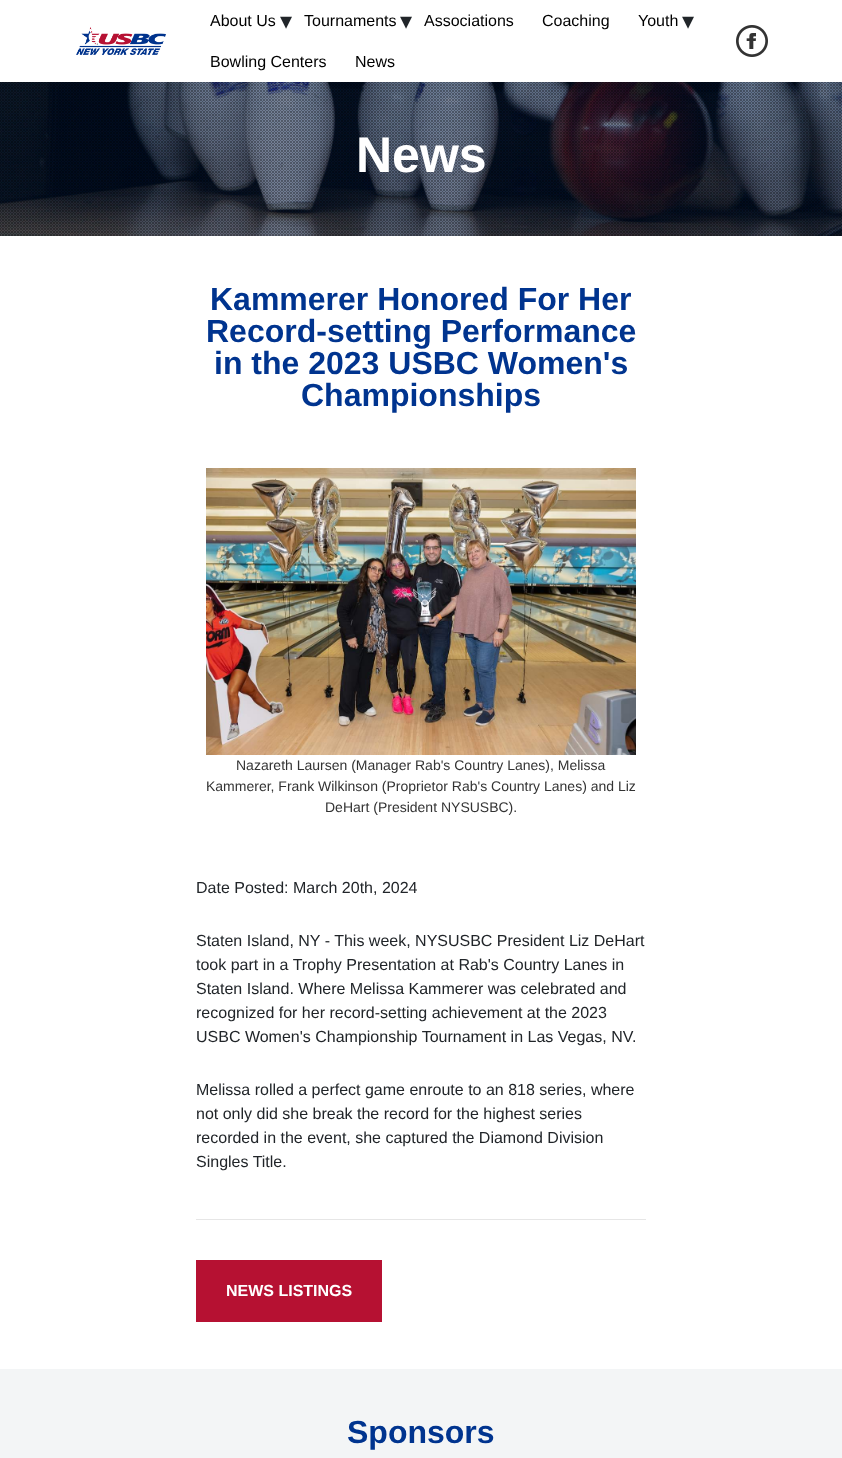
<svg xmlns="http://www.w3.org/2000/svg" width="842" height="1458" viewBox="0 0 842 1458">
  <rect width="100%" height="100%" fill="rgb(255,255,255)"/>
  <image x="76" y="27" width="90" height="28" href="pic1.png"/>
  <text x="210" y="26" font-family="Liberation Sans" font-size="16" fill="rgb(0,0,0)">About Us</text>
  <text x="280" y="29" font-family="DejaVu Sans" font-size="24" fill="rgb(33,37,41)">▾</text>
  <text x="304" y="26" font-family="Liberation Sans" font-size="16" fill="rgb(0,0,0)">Tournaments</text>
  <text x="400" y="29" font-family="DejaVu Sans" font-size="24" fill="rgb(33,37,41)">▾</text>
  <g font-family="Liberation Sans" font-size="16" fill="rgb(0,0,0)">
    <text x="424" y="26">Associations</text>
    <text x="542" y="26">Coaching</text>
    <text x="638" y="26">Youth</text>
  </g>
  <text x="682" y="29" font-family="DejaVu Sans" font-size="24" fill="rgb(33,37,41)">▾</text>
  <g font-family="Liberation Sans" font-size="16" fill="rgb(0,0,0)">
    <text x="210" y="67">Bowling Centers</text>
    <text x="355" y="67">News</text>
  </g>
  <image x="736" y="25" width="32" height="32" href="pic2.png"/>
  <rect x="0" y="82" width="842" height="154" fill="rgb(0,21,61)"/>
  <image x="0" y="82" width="842" height="154" href="pic3.png"/>
  <image x="0" y="82" width="842" height="154" href="pic4.png"/>
  <text x="356" y="172" font-family="Liberation Sans" font-size="50" font-weight="bold" fill="rgb(255,255,255)">News</text>
  <g font-family="Liberation Sans" font-size="32" font-weight="bold" fill="rgb(0,52,143)">
    <text x="210" y="310">Kammerer Honored For Her</text>
    <text x="206" y="342">Record-setting Performance</text>
    <text x="214" y="374">in the 2023 USBC Women's</text>
    <text x="301" y="406">Championships</text>
  </g>
  <image x="206" y="468" width="430" height="287" href="pic5.png"/>
  <g font-family="Liberation Sans" font-size="14" fill="rgb(51,51,51)">
    <text x="236" y="770">Nazareth Laursen (Manager Rab's Country Lanes), Melissa</text>
    <text x="206" y="791">Kammerer, Frank Wilkinson (Proprietor Rab's Country Lanes) and Liz</text>
    <text x="325" y="812">DeHart (President NYSUSBC).</text>
  </g>
  <g font-family="Liberation Sans" font-size="16" fill="rgb(33,37,41)">
    <text x="196" y="893">Date Posted: March 20th, 2024</text>
    <text>
      <tspan x="196" y="946">Staten Island, NY - This week, NYSUSBC President Liz DeHart</tspan>
      <tspan x="196" y="970">took part in a Trophy Presentation at Rab's Country Lanes in</tspan>
      <tspan x="196" y="994">Staten Island. Where Melissa Kammerer was celebrated and</tspan>
      <tspan x="196" y="1018">recognized for her record-setting achievement at the 2023</tspan>
      <tspan x="196" y="1042">USBC Women's Championship Tournament in Las Vegas, NV.</tspan>
    </text>
    <text>
      <tspan x="196" y="1095">Melissa rolled a perfect game enroute to an 818 series, where</tspan>
      <tspan x="196" y="1119">not only did she break the record for the highest series</tspan>
      <tspan x="196" y="1143">recorded in the event, she captured the Diamond Division</tspan>
      <tspan x="196" y="1167">Singles Title.</tspan>
    </text>
  </g>
  <rect x="196" y="1219" width="450" height="1" fill="rgb(230,230,230)"/>
  <rect x="196" y="1260" width="186" height="62" fill="rgb(182,17,50)"/>
  <text x="226" y="1296" font-family="Liberation Sans" font-size="16" font-weight="bold" fill="rgb(255,255,255)">NEWS LISTINGS</text>
  <rect x="0" y="1369" width="842" height="89" fill="rgb(243,245,246)"/>
  <text x="347" y="1443" font-family="Liberation Sans" font-size="32" font-weight="bold" fill="rgb(0,52,143)">Sponsors</text>
</svg>
